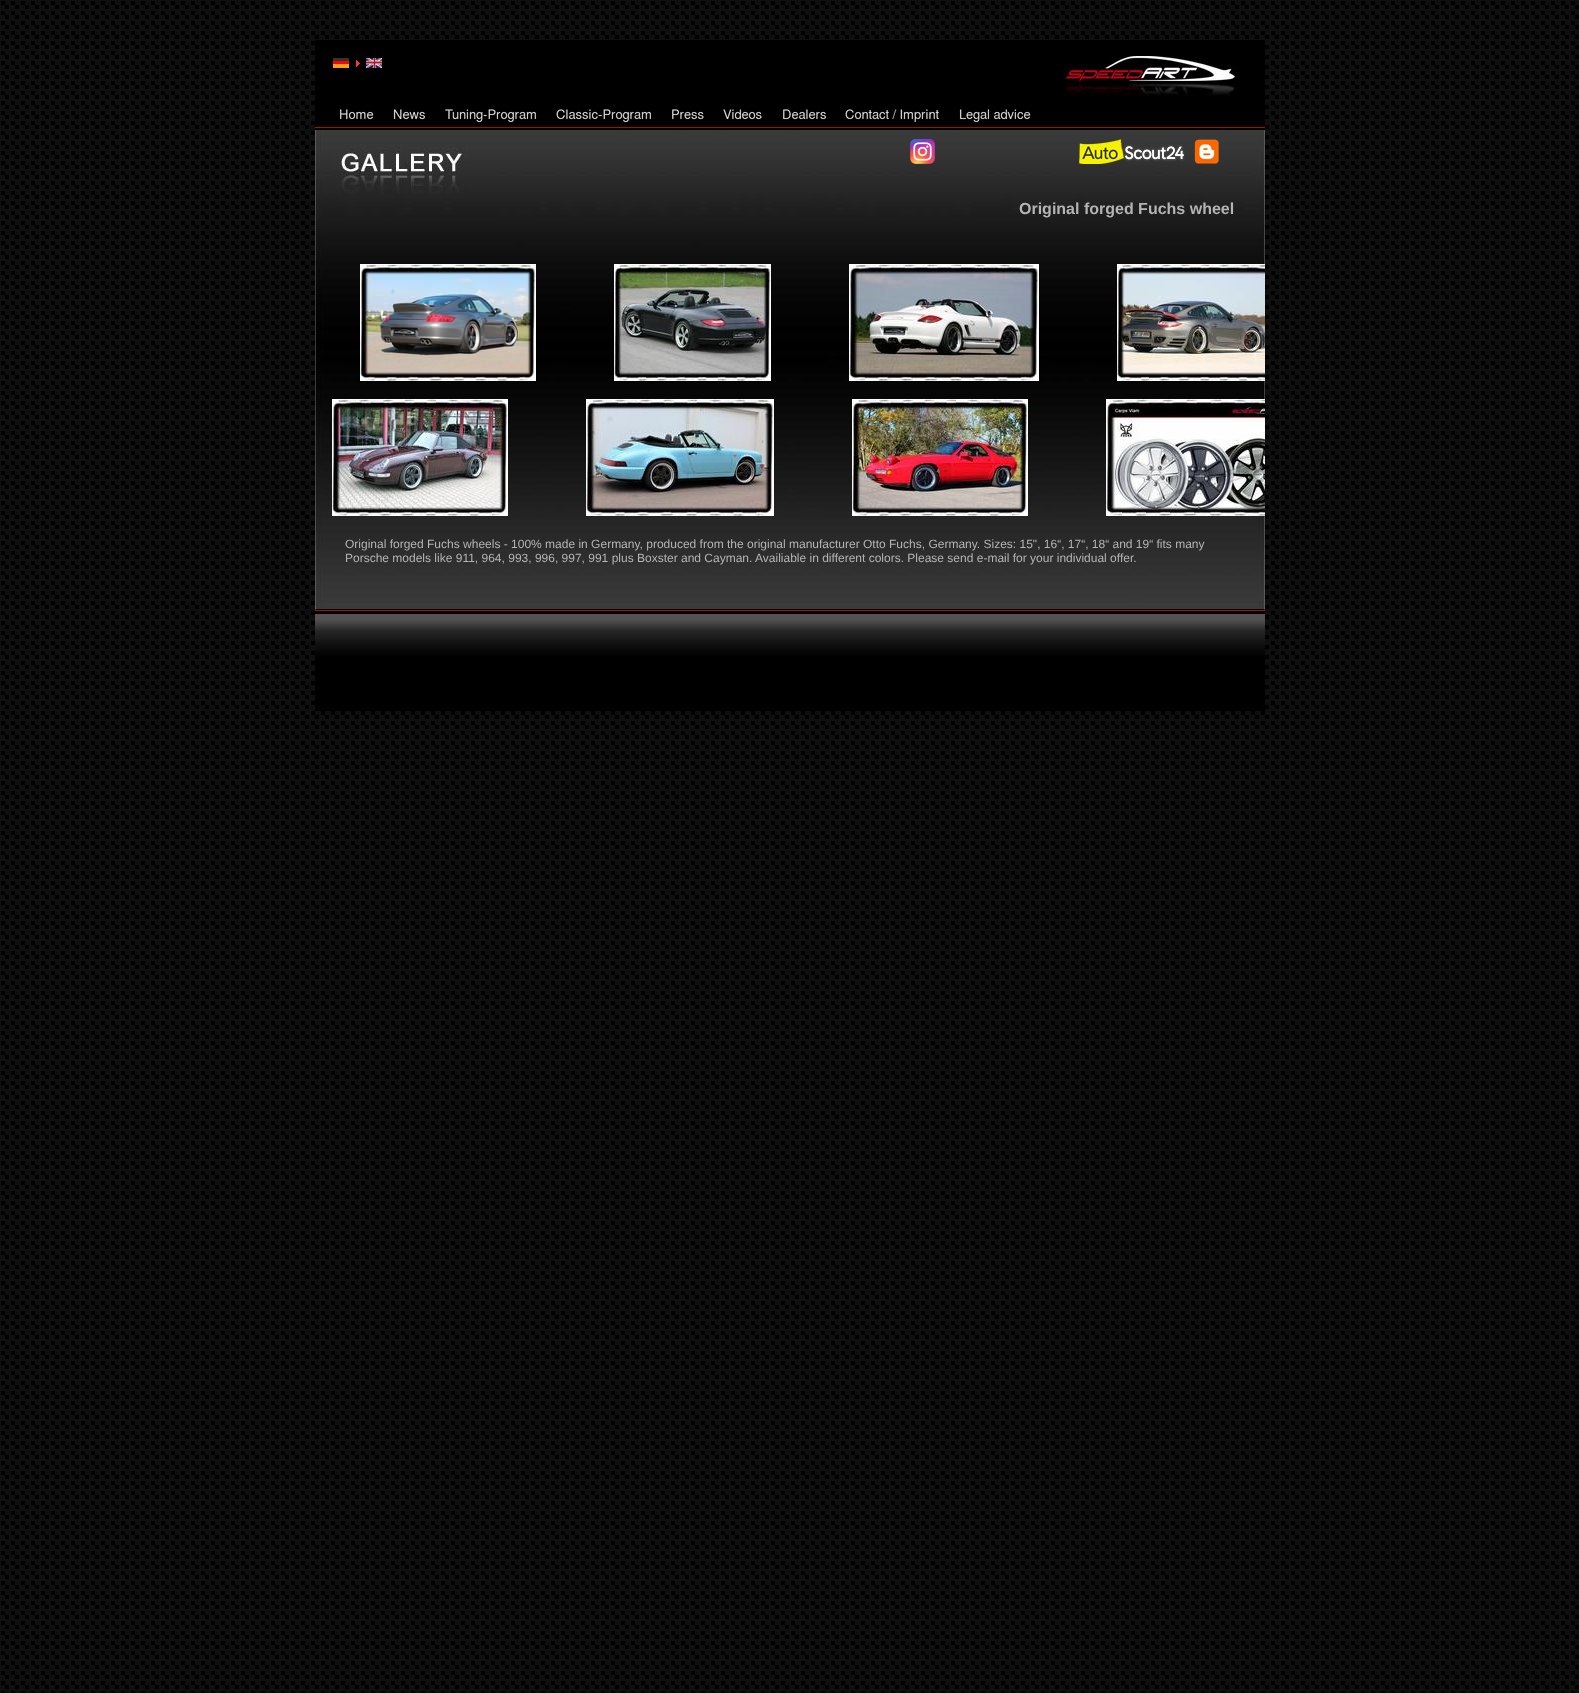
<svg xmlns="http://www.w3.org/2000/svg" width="1579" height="1693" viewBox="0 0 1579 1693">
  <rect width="100%" height="100%" fill="rgb(255,255,255)"/>
  <image x="0" y="0" width="1579" height="1693" href="pic1.png"/>
  <rect x="315" y="40" width="950" height="87" fill="rgb(0,0,0)"/>
  <rect x="315" y="127" width="950" height="1" fill="rgb(164,13,19)"/>
  <image x="333" y="58" width="16" height="10" href="pic2.png"/>
  <image x="356" y="60" width="4" height="7" href="pic3.png"/>
  <image x="366" y="58" width="16" height="10" href="pic4.png"/>
  <image x="1062" y="56" width="175" height="40" href="pic5.png"/>
  <image x="339" y="109" width="35" height="11" href="pic6.png"/>
  <image x="393" y="109" width="32" height="11" href="pic7.png"/>
  <image x="445" y="109" width="92" height="14" href="pic8.png"/>
  <image x="556" y="109" width="96" height="14" href="pic9.png"/>
  <image x="672" y="109" width="32" height="11" href="pic10.png"/>
  <image x="723" y="109" width="39" height="11" href="pic11.png"/>
  <image x="783" y="109" width="43" height="11" href="pic12.png"/>
  <image x="845" y="109" width="94" height="14" href="pic13.png"/>
  <image x="959" y="109" width="72" height="14" href="pic14.png"/>
  <image x="315" y="130" width="950" height="480" href="pic18.png"/>
  <image x="910" y="139" width="25" height="25" href="pic15.png"/>
  <image x="1079" y="139" width="106" height="25" href="pic16.png"/>
  <image x="1194" y="139" width="25" height="25" href="pic17.png"/>
  <rect x="315" y="128" width="950" height="2" fill="rgb(0,0,0)"/>
  <rect x="315" y="611" width="950" height="1" fill="rgb(0,0,0)"/>
  <text x="1019" y="214" font-family="Liberation Sans" font-size="16" font-weight="bold" fill="rgb(180,180,180)">Original forged Fuchs wheel</text>
  <image x="360" y="264" width="176" height="117" href="pic19.png"/>
  <image x="614" y="264" width="157" height="117" href="pic20.png"/>
  <image x="849" y="264" width="190" height="117" href="pic21.png"/>
  <image x="1117" y="264" width="148" height="117" href="pic22.png"/>
  <image x="332" y="399" width="176" height="117" href="pic23.png"/>
  <image x="586" y="399" width="188" height="117" href="pic24.png"/>
  <image x="852" y="399" width="176" height="117" href="pic25.png"/>
  <image x="1106" y="399" width="159" height="117" href="pic26.png"/>
  <g font-family="Liberation Sans" font-size="12" fill="rgb(180,180,180)">
    <text>
      <tspan x="345" y="548">Original forged Fuchs wheels - 100% made in Germany, produced from the original manufacturer Otto Fuchs, Germany. Sizes: 15", 16“, 17“, 18“ and 19“ fits many</tspan>
      <tspan x="345" y="562">Porsche models like 911, 964, 993, 996, 997, 991 plus Boxster and Cayman. Availiable in different colors. Please send e-mail for your individual offer.</tspan>
    </text>
  </g>
  <image x="315" y="612" width="950" height="99" href="pic27.png"/>
  <rect x="315" y="610" width="950" height="1" fill="rgb(164,13,19)"/>
</svg>
